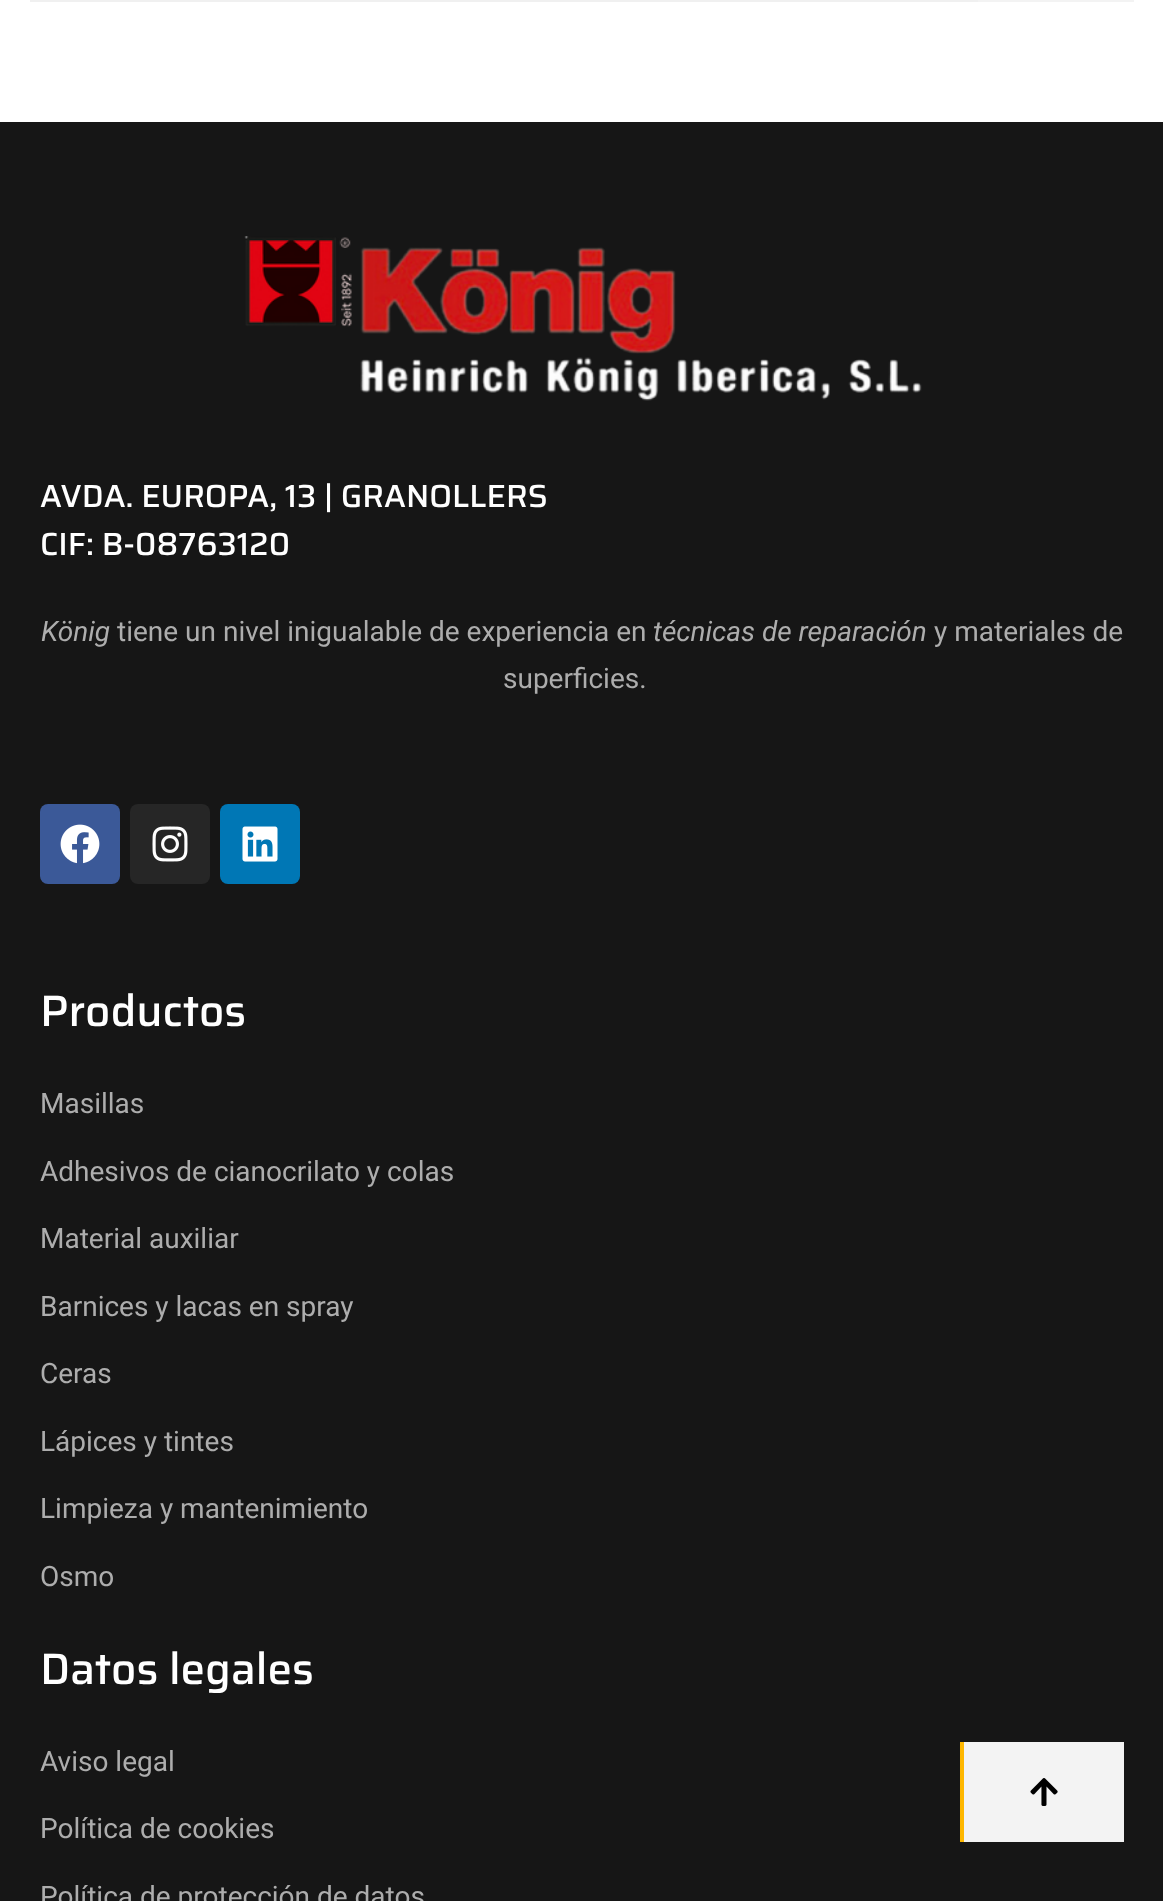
<svg xmlns="http://www.w3.org/2000/svg" width="1163" height="1901" viewBox="0 0 1163 1901">
  <rect width="100%" height="100%" fill="rgb(255,255,255)"/>
  <rect x="30" y="0" width="948" height="2" fill="rgb(240,240,240)"/>
  <rect x="978" y="0" width="156" height="2" fill="rgb(243,243,243)"/>
  <rect x="0" y="122" width="1163" height="1779" fill="rgb(22,22,22)"/>
  <image x="244" y="236" width="678" height="165" href="pic1.png"/>
  <g font-family="Saira" font-size="32" font-weight="500" fill="rgb(255,255,255)">
    <text>
      <tspan x="40" y="507">AVDA. EUROPA, 13 | GRANOLLERS</tspan>
      <tspan x="40" y="555">CIF: B-08763120</tspan>
    </text>
  </g>
  <text x="41" y="641" font-family="Roboto" font-size="28" font-style="italic" fill="rgb(173,173,173)">König</text>
  <text x="117" y="641" font-family="Roboto" font-size="28" fill="rgb(173,173,173)">tiene un nivel inigualable de experiencia en</text>
  <text x="653" y="641" font-family="Roboto" font-size="28" font-style="italic" fill="rgb(173,173,173)">técnicas de reparación</text>
  <g font-family="Roboto" font-size="28" fill="rgb(173,173,173)">
    <text x="934" y="641">y materiales de</text>
    <text x="503" y="688">superficies.</text>
  </g>
  <rect x="40" y="804" width="80" height="80" rx="8" fill="rgb(59,89,152)"/>
  <image x="60" y="824" width="40" height="40" href="pic2.png"/>
  <rect x="130" y="804" width="80" height="80" rx="8" fill="rgb(38,38,38)"/>
  <image x="152" y="826" width="36" height="36" href="pic3.png"/>
  <rect x="220" y="804" width="80" height="80" rx="8" fill="rgb(0,119,181)"/>
  <image x="242" y="826" width="36" height="36" href="pic4.png"/>
  <text x="40" y="1026" font-family="Saira" font-size="44" font-weight="500" fill="rgb(255,255,255)">Productos</text>
  <g font-family="Roboto" font-size="28" fill="rgb(173,173,173)">
    <text x="40" y="1113">Masillas</text>
    <text x="40" y="1181">Adhesivos de cianocrilato y colas</text>
    <text x="40" y="1248">Material auxiliar</text>
    <text x="40" y="1316">Barnices y lacas en spray</text>
    <text x="40" y="1383">Ceras</text>
    <text x="40" y="1451">Lápices y tintes</text>
    <text x="40" y="1518">Limpieza y mantenimiento</text>
    <text x="40" y="1586">Osmo</text>
  </g>
  <text x="40" y="1684" font-family="Saira" font-size="44" font-weight="500" fill="rgb(255,255,255)">Datos legales</text>
  <g font-family="Roboto" font-size="28" fill="rgb(173,173,173)">
    <text x="40" y="1771">Aviso legal</text>
    <text x="40" y="1838">Política de cookies</text>
    <text x="40" y="1906">Política de protección de datos</text>
  </g>
  <rect x="964" y="1742" width="160" height="100" fill="rgb(243,243,243)"/>
  <rect x="960" y="1742" width="4" height="100" fill="rgb(254,183,0)"/>
  <image x="1030" y="1778" width="28" height="28" href="pic5.png"/>
</svg>
